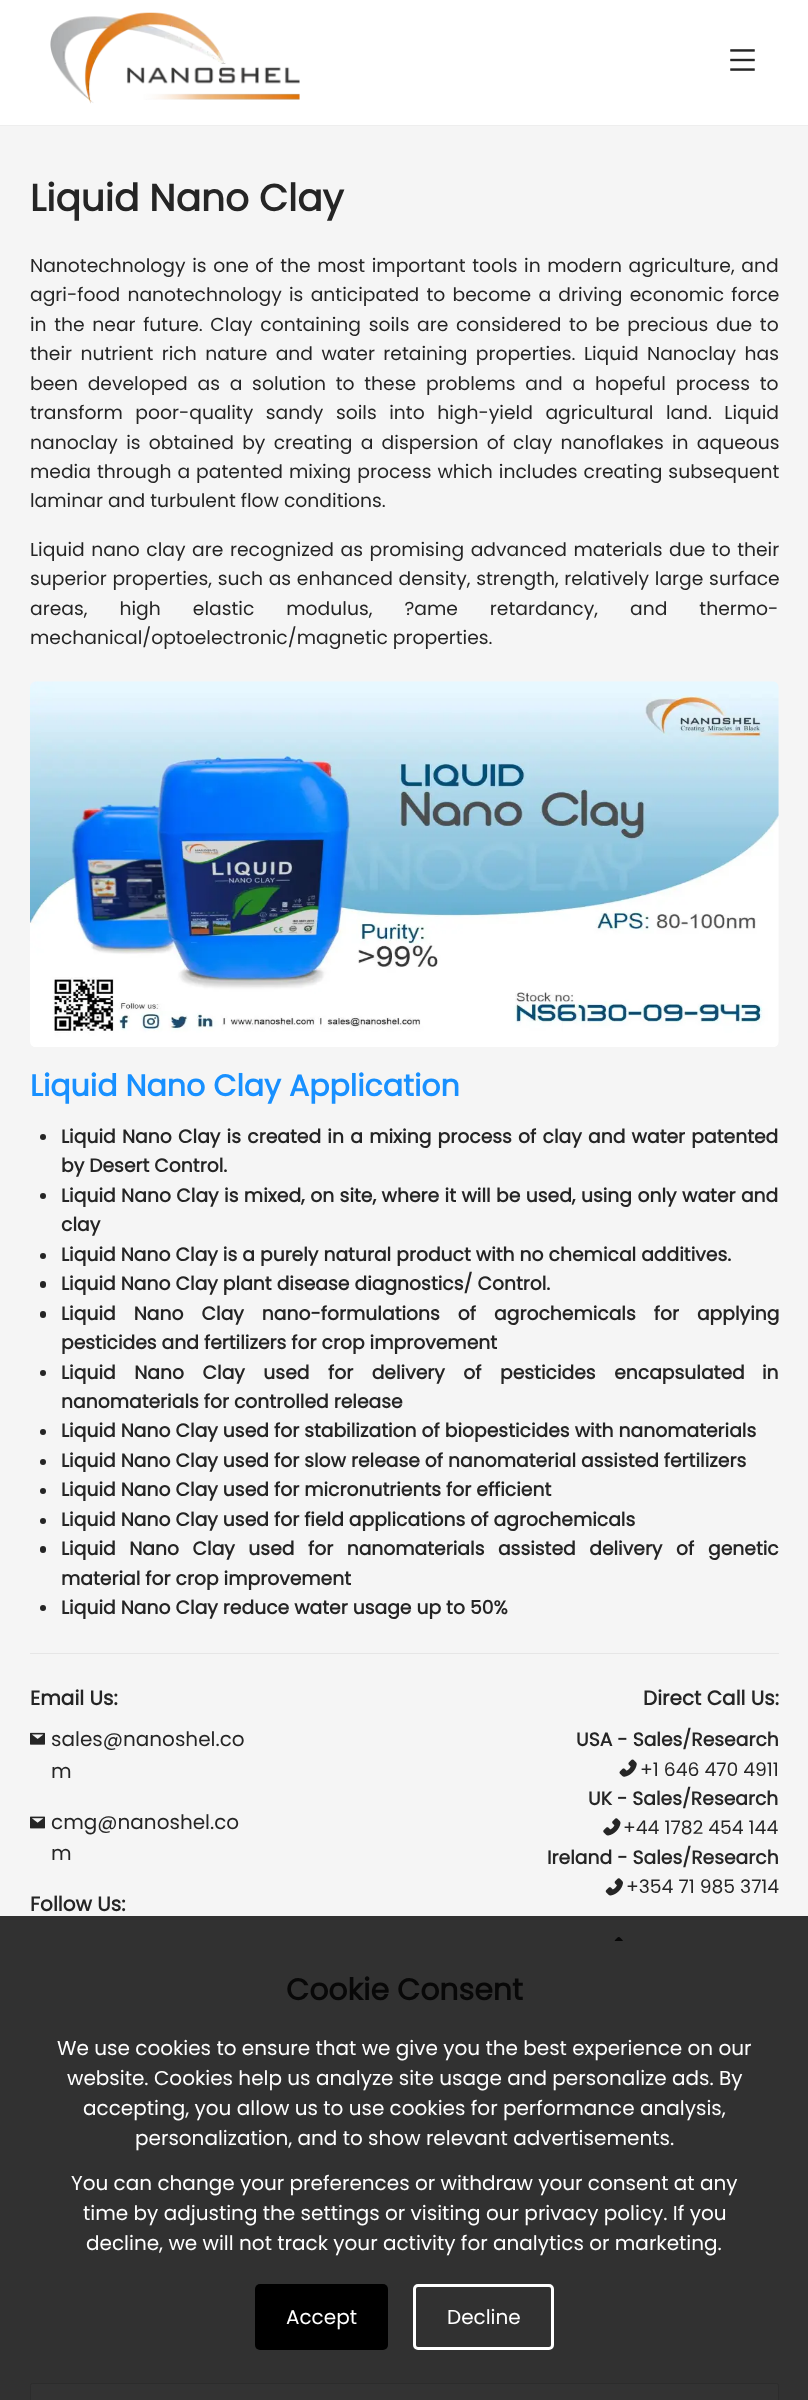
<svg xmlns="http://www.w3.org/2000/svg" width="808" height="2400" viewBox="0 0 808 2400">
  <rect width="100%" height="100%" fill="rgb(255,255,255)"/>
  <rect x="0" y="125" width="808" height="1" fill="rgb(238,238,238)"/>
  <image x="50" y="12" width="250" height="92" href="pic1.png"/>
  <image x="730" y="49" width="25" height="22" href="pic2.png"/>
  <rect x="0" y="126" width="808" height="2274" fill="rgb(245,245,245)"/>
  <text x="30" y="211" font-family="Poppins" font-size="37.5" font-weight="bold" fill="rgb(37,37,37)">Liquid Nano Clay</text>
  <g font-family="Poppins" font-size="18.75" fill="rgb(37,37,37)">
    <text>
      <tspan x="30" y="272" word-spacing="1.6">Nanotechnology is one of the most important tools in modern agriculture, and</tspan>
      <tspan x="30" y="301" word-spacing="2.25">agri-food nanotechnology is anticipated to become a driving economic force</tspan>
      <tspan x="30" y="331" word-spacing="2.6">in the near future. Clay containing soils are considered to be precious due to</tspan>
      <tspan x="30" y="360" word-spacing="3.4">their nutrient rich nature and water retaining properties. Liquid Nanoclay has</tspan>
      <tspan x="30" y="390" word-spacing="4.75">been developed as a solution to these problems and a hopeful process to</tspan>
      <tspan x="30" y="419" word-spacing="7.5">transform poor-quality sandy soils into high-yield agricultural land. Liquid</tspan>
      <tspan x="30" y="449" word-spacing="3.25">nanoclay is obtained by creating a dispersion of clay nanoflakes in aqueous</tspan>
      <tspan x="30" y="478" word-spacing="1">media through a patented mixing process which includes creating subsequent</tspan>
      <tspan x="30" y="507">laminar and turbulent flow conditions.</tspan>
    </text>
    <text>
      <tspan x="30" y="556" word-spacing="1.5">Liquid nano clay are recognized as promising advanced materials due to their</tspan>
      <tspan x="30" y="585" word-spacing="0.75">superior properties, such as enhanced density, strength, relatively large surface</tspan>
      <tspan x="30" y="615" word-spacing="27">areas, high elastic modulus, ?ame retardancy, and thermo-</tspan>
      <tspan x="30" y="644">mechanical/optoelectronic/magnetic properties.</tspan>
    </text>
  </g>
  <image x="30" y="681" width="749" height="366" href="pic3.png"/>
  <text x="30" y="1096" font-family="Poppins" font-size="30" font-weight="bold" fill="rgb(24,144,255)">Liquid Nano Clay Application</text>
  <circle cx="43" cy="1137" r="3" fill="rgb(37,37,37)"/>
  <g font-family="Poppins" font-size="18.75" font-weight="bold" fill="rgb(37,37,37)">
    <text>
      <tspan x="61" y="1143" word-spacing="1.25">Liquid Nano Clay is created in a mixing process of clay and water patented</tspan>
      <tspan x="61" y="1172">by Desert Control.</tspan>
    </text>
  </g>
  <circle cx="43" cy="1196" r="3" fill="rgb(37,37,37)"/>
  <g font-family="Poppins" font-size="18.75" font-weight="bold" fill="rgb(37,37,37)">
    <text>
      <tspan x="61" y="1202" word-spacing="0.4">Liquid Nano Clay is mixed, on site, where it will be used, using only water and</tspan>
      <tspan x="61" y="1231">clay</tspan>
    </text>
  </g>
  <circle cx="43" cy="1256" r="3" fill="rgb(37,37,37)"/>
  <text x="61" y="1261" font-family="Poppins" font-size="18.75" font-weight="bold" fill="rgb(37,37,37)">Liquid Nano Clay is a purely natural product with no chemical additives.</text>
  <rect x="40" y="1281" width="6" height="7" rx="3" fill="rgb(37,37,37)"/>
  <text x="61" y="1290" font-family="Poppins" font-size="18.75" font-weight="bold" fill="rgb(37,37,37)">Liquid Nano Clay plant disease diagnostics/ Control.</text>
  <rect x="40" y="1311" width="6" height="7" rx="3" fill="rgb(37,37,37)"/>
  <g font-family="Poppins" font-size="18.75" font-weight="bold" fill="rgb(37,37,37)">
    <text>
      <tspan x="61" y="1320" word-spacing="13">Liquid Nano Clay nano-formulations of agrochemicals for applying</tspan>
      <tspan x="61" y="1349">pesticides and fertilizers for crop improvement</tspan>
    </text>
  </g>
  <circle cx="43" cy="1373" r="3" fill="rgb(37,37,37)"/>
  <g font-family="Poppins" font-size="18.75" font-weight="bold" fill="rgb(37,37,37)">
    <text x="61" y="1379" word-spacing="13.5">Liquid Nano Clay used for delivery of pesticides encapsulated</text>
    <text x="762" y="1379">in</text>
    <text x="61" y="1408">nanomaterials for controlled release</text>
  </g>
  <circle cx="43" cy="1432" r="3" fill="rgb(37,37,37)"/>
  <text x="61" y="1437" font-family="Poppins" font-size="18.75" font-weight="bold" fill="rgb(37,37,37)">Liquid Nano Clay used for stabilization of biopesticides with nanomaterials</text>
  <circle cx="43" cy="1462" r="3" fill="rgb(37,37,37)"/>
  <text x="61" y="1467" font-family="Poppins" font-size="18.75" font-weight="bold" fill="rgb(37,37,37)">Liquid Nano Clay used for slow release of nanomaterial assisted fertilizers</text>
  <circle cx="43" cy="1491" r="3" fill="rgb(37,37,37)"/>
  <text x="61" y="1496" font-family="Poppins" font-size="18.75" font-weight="bold" fill="rgb(37,37,37)">Liquid Nano Clay used for micronutrients for efficient</text>
  <circle cx="43" cy="1521" r="3" fill="rgb(37,37,37)"/>
  <text x="61" y="1526" font-family="Poppins" font-size="18.75" font-weight="bold" fill="rgb(37,37,37)">Liquid Nano Clay used for field applications of agrochemicals</text>
  <rect x="40" y="1546" width="6" height="7" rx="3" fill="rgb(37,37,37)"/>
  <g font-family="Poppins" font-size="18.75" font-weight="bold" fill="rgb(37,37,37)">
    <text x="61" y="1555" word-spacing="8.5">Liquid Nano Clay used for nanomaterials assisted delivery</text>
    <text x="676" y="1555">of</text>
    <text x="708" y="1555">genetic</text>
    <text x="61" y="1585">material for crop improvement</text>
  </g>
  <circle cx="43" cy="1608" r="3" fill="rgb(37,37,37)"/>
  <text x="61" y="1614" font-family="Poppins" font-size="18.75" font-weight="bold" fill="rgb(37,37,37)">Liquid Nano Clay reduce water usage up to 50%</text>
  <rect x="30" y="1653" width="749" height="1" fill="rgb(230,230,230)"/>
  <text x="30" y="1705" font-family="Poppins" font-size="20" font-weight="bold" fill="rgb(37,37,37)">Email Us:</text>
  <image x="30" y="1732" width="15" height="13" href="pic4.png"/>
  <g font-family="Poppins" font-size="20" fill="rgb(37,37,37)">
    <text>
      <tspan x="51" y="1746">sales@nanoshel.co</tspan>
      <tspan x="51" y="1778">m</tspan>
    </text>
  </g>
  <image x="30" y="1816" width="15" height="13" href="pic5.png"/>
  <g font-family="Poppins" font-size="20" fill="rgb(37,37,37)">
    <text>
      <tspan x="51" y="1829">cmg@nanoshel.co</tspan>
      <tspan x="51" y="1860">m</tspan>
    </text>
  </g>
  <g font-family="Poppins" font-size="20" font-weight="bold" fill="rgb(37,37,37)">
    <text x="30" y="1911">Follow Us:</text>
    <text x="643" y="1705">Direct Call Us:</text>
  </g>
  <text x="576" y="1746" font-family="Poppins" font-size="18.75" font-weight="bold" fill="rgb(37,37,37)">USA - Sales/Research</text>
  <image x="619" y="1759" width="18" height="18" href="pic6.png"/>
  <text x="640" y="1776" font-family="Poppins" font-size="18.75" fill="rgb(37,37,37)">+1 646 470 4911</text>
  <text x="588" y="1805" font-family="Poppins" font-size="18.75" font-weight="bold" fill="rgb(37,37,37)">UK - Sales/Research</text>
  <image x="603" y="1818" width="18" height="18" href="pic7.png"/>
  <text x="623" y="1834" font-family="Poppins" font-size="18.75" fill="rgb(37,37,37)">+44 1782 454 144</text>
  <text x="547" y="1864" font-family="Poppins" font-size="18.75" font-weight="bold" fill="rgb(37,37,37)">Ireland - Sales/Research</text>
  <image x="605" y="1878" width="18" height="18" href="pic8.png"/>
  <text x="626" y="1893" font-family="Poppins" font-size="18.75" fill="rgb(37,37,37)">+354 71 985 3714</text>
  <image x="614" y="1937" width="9" height="4" href="pic9.png"/>
  <rect x="30.5" y="2383.5" width="748" height="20" rx="2" fill="rgb(255,255,255)" stroke="rgb(217,217,217)"/>
  <rect x="0" y="1916" width="808" height="484" fill="rgba(0,0,0,0.8)"/>
  <text x="286" y="2000" font-family="Poppins" font-size="30" font-weight="bold" fill="rgb(8,8,8)">Cookie Consent</text>
  <g font-family="Poppins" font-size="20" fill="rgb(255,255,255)">
    <text x="57" y="2055">We use cookies to ensure that we give you the best experience on our</text>
    <text x="67" y="2085">website. Cookies help us analyze site usage and personalize ads. By</text>
    <text x="83" y="2115">accepting, you allow us to use cookies for performance analysis,</text>
    <text x="135" y="2145">personalization, and to show relevant advertisements.</text>
    <text x="71" y="2190">You can change your preferences or withdraw your consent at any</text>
    <text x="83" y="2220">time by adjusting the settings or visiting our privacy policy. If you</text>
    <text x="86" y="2250">decline, we will not track your activity for analytics or marketing.</text>
  </g>
  <rect x="255" y="2284" width="133" height="66" rx="5" fill="rgb(0,0,0)"/>
  <text x="286" y="2324" font-family="Poppins" font-size="20" fill="rgb(255,255,255)">Accept</text>
  <rect x="414.5" y="2285.5" width="138" height="63" rx="3.5" fill="none" stroke="rgb(255,255,255)" stroke-width="3"/>
  <text x="447" y="2324" font-family="Poppins" font-size="20" fill="rgb(255,255,255)">Decline</text>
</svg>
